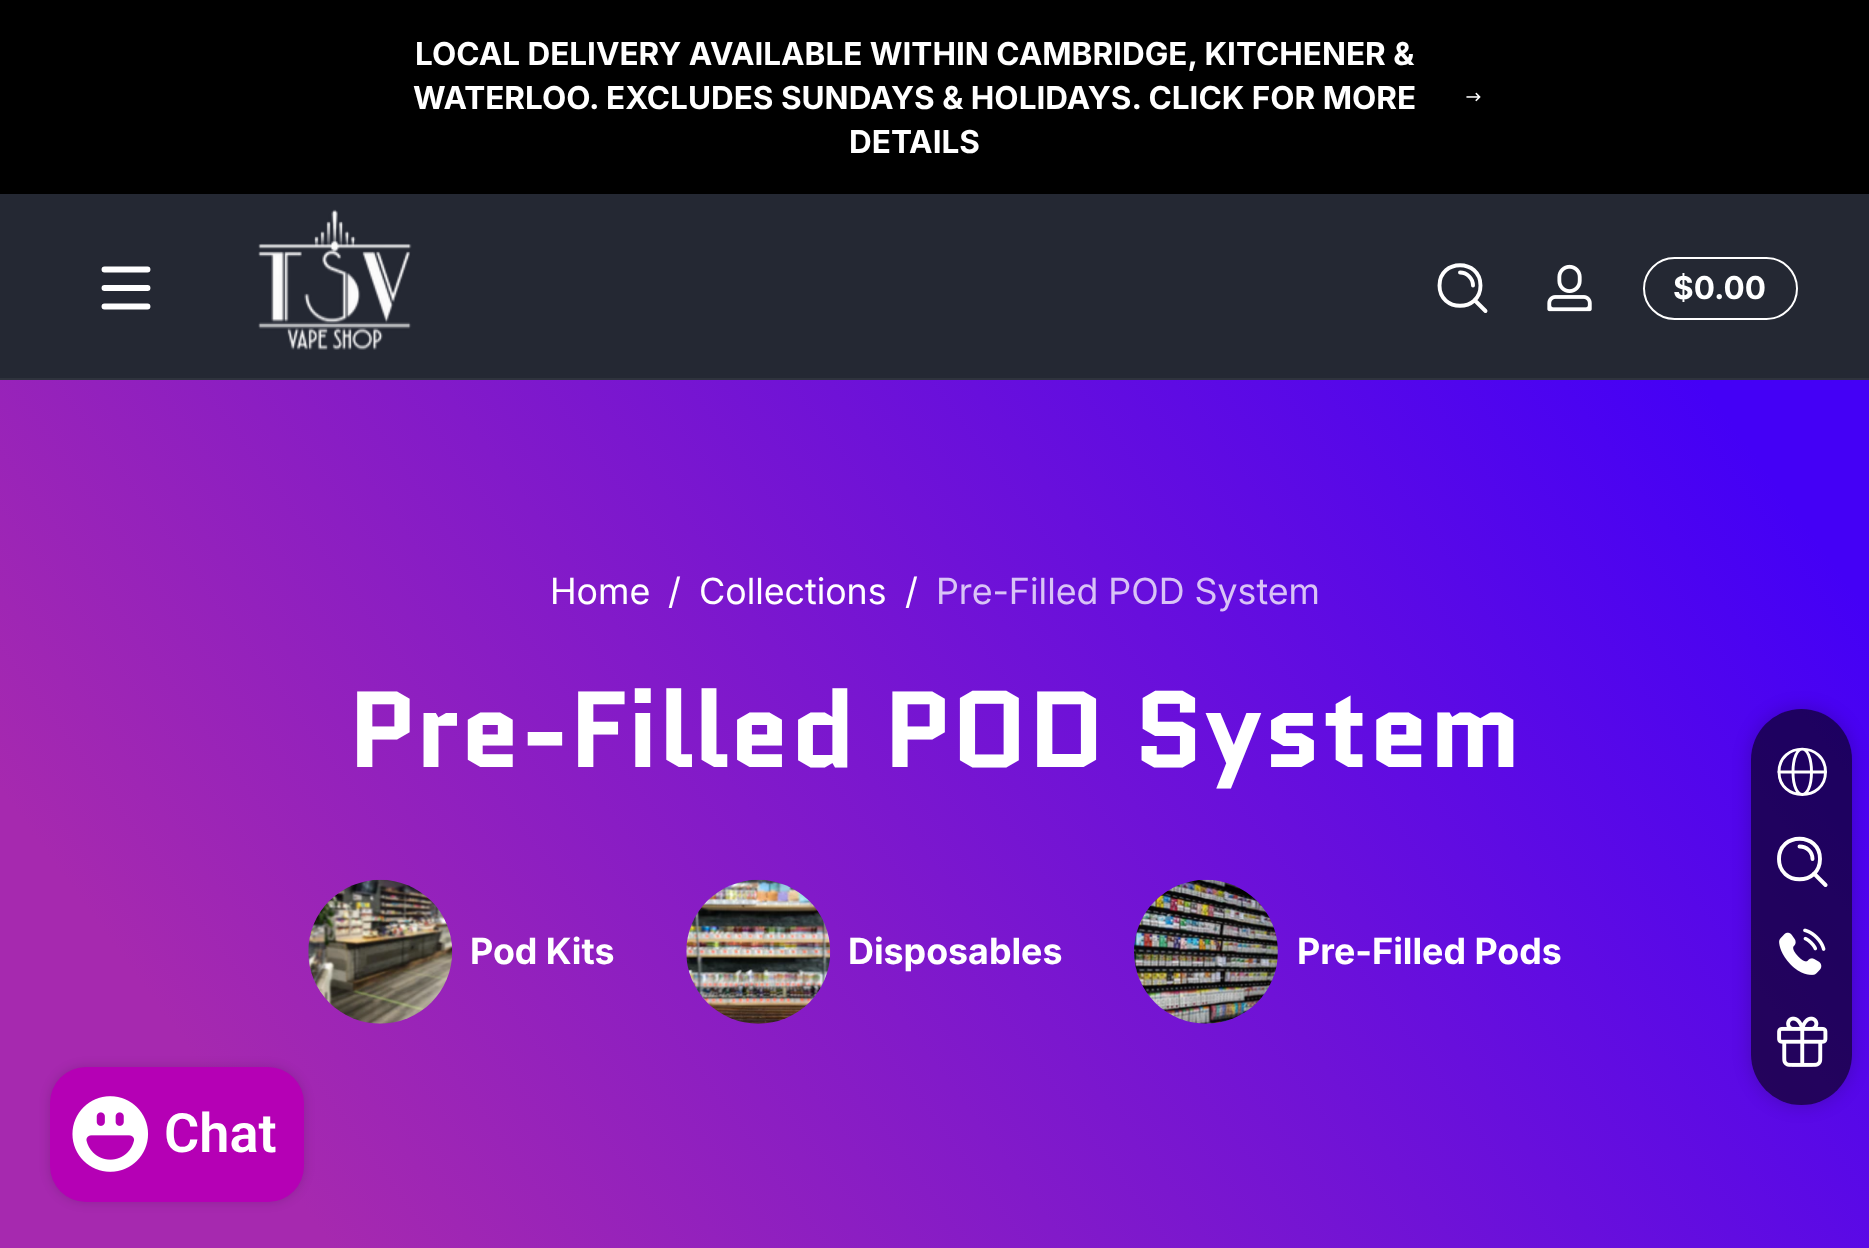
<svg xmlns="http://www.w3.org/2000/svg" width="1869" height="1248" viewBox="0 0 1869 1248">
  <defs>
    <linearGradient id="g1" gradientUnits="userSpaceOnUse" x1="26" y1="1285" x2="1844" y2="-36"><stop offset="0.12" stop-color="rgb(166,41,175)"/><stop offset="0.84" stop-color="rgb(68,0,246)"/></linearGradient>
    <clipPath id="clip1"><path d="M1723 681H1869V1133H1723ZM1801.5 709C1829.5 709 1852 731.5 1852 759.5V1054.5C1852 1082.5 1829.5 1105 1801.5 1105C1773.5 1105 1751 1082.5 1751 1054.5V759.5C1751 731.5 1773.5 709 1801.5 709Z" clip-rule="evenodd"/></clipPath>
  </defs>
  <rect width="100%" height="100%" fill="rgb(36,40,51)"/>
  <rect x="0" y="0" width="1869" height="194" fill="rgb(0,0,0)"/>
  <g font-family="Inter" font-size="31.5" font-weight="bold" fill="rgb(255,255,255)">
    <text x="415" y="65">LOCAL DELIVERY AVAILABLE WITHIN CAMBRIDGE, KITCHENER &amp;</text>
    <text x="413" y="109">WATERLOO. EXCLUDES SUNDAYS &amp; HOLIDAYS. CLICK FOR MORE</text>
  </g>
  <image x="1466" y="92" width="15" height="10" href="pic1.png"/>
  <text x="849" y="153" font-family="Inter" font-size="31.5" font-weight="bold" fill="rgb(255,255,255)">DETAILS</text>
  <path d="M104.5 269.5H147.5M104.5 288H147.5M104.5 306.5H147.5" fill="none" stroke="rgb(255,255,255)" stroke-width="5.9" stroke-linecap="round"/>
  <image x="258" y="209" width="154" height="141" href="pic2.png"/>
  <path d="M1460 272.5C1467 272.5 1473 278.5 1473 285.5M1474.5 300L1485.5 311M1480.5 285.5C1480.5 312.5 1439.5 312.5 1439.5 285.5C1439.5 258.5 1480.5 258.5 1480.5 285.5Z" fill="none" stroke="rgb(255,255,255)" stroke-width="3.9" stroke-linecap="round" stroke-linejoin="round"/>
  <image x="1547" y="264" width="45" height="48" href="pic3.png"/>
  <rect x="1644" y="258" width="153" height="61" rx="30.5" fill="none" stroke="rgb(255,255,255)" stroke-width="2"/>
  <text x="1673" y="299" font-family="Inter" font-size="31.5" font-weight="bold" fill="rgb(255,255,255)">$0.00</text>
  <rect x="0" y="378" width="1869" height="2" fill="rgb(47,51,61)"/>
  <rect x="0" y="380" width="1869" height="868" fill="url(#g1)"/>
  <rect x="50" y="1067" width="254" height="135" rx="36" fill="rgba(0,0,0,0.15)" filter="blur(5.5px)"/>
  <rect x="50" y="1067" width="254" height="135" rx="36" fill="rgb(181,0,181)"/>
  <image x="72" y="1096" width="77" height="76" href="pic4.png"/>
  <text x="164" y="1152" font-family="Roboto" font-size="54" font-weight="600" fill="rgb(255,255,255)">Chat</text>
  <g font-family="Inter" font-size="36" fill="rgb(255,255,255)">
    <text x="550" y="604">Home</text>
    <text x="668" y="604">/</text>
    <text x="699" y="604">Collections</text>
    <text x="905" y="604">/</text>
  </g>
  <text x="936" y="604" font-family="Inter" font-size="36" fill="rgb(217,195,246)">Pre-Filled POD System</text>
  <text x="348" y="767" font-family="Quantico" font-size="108" font-weight="bold" fill="rgb(255,255,255)">Pre-Filled POD System</text>
  <image x="308" y="879" width="145" height="145" href="pic5.png"/>
  <text x="470" y="964" font-family="'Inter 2'" font-size="36" font-weight="bold" fill="rgb(255,255,255)">Pod Kits</text>
  <image x="686" y="879" width="145" height="145" href="pic6.png"/>
  <text x="848" y="964" font-family="'Inter 2'" font-size="36" font-weight="bold" fill="rgb(255,255,255)">Disposables</text>
  <image x="1134" y="879" width="144" height="145" href="pic7.png"/>
  <text x="1297" y="964" font-family="'Inter 2'" font-size="36" font-weight="bold" fill="rgb(255,255,255)">Pre-Filled Pods</text>
  <g clip-path="url(#clip1)">
    <rect x="1751" y="709" width="101" height="396" rx="50.5" fill="rgba(0,0,0,0.2)" filter="blur(9px)"/>
  </g>
  <rect x="1751" y="709" width="101" height="396" rx="50.5" fill="rgba(0,0,0,0.6)"/>
  <path d="M1825.5 772C1825.5 802 1779 802 1779 772C1779 741.5 1825.5 741.5 1825.5 772ZM1811.5 772C1811.5 802 1793 802 1793 772C1793 741.5 1811.5 741.5 1811.5 772Z" fill="none" stroke="rgb(255,255,255)" stroke-width="2.9"/>
  <path d="M1779 772H1825.5" fill="none" stroke="rgb(255,255,255)" stroke-width="2.9" stroke-linecap="round"/>
  <path d="M1799.5 846.5C1807 846.5 1812.5 852 1812.5 859M1814 873.5L1825.5 885M1820 859C1820 886 1779 886 1779 859C1779 832 1820 832 1820 859Z" fill="none" stroke="rgb(255,255,255)" stroke-width="3.9" stroke-linecap="round" stroke-linejoin="round"/>
  <image x="1779" y="928" width="47" height="47" href="pic8.png"/>
  <image x="1777" y="1016" width="51" height="51" href="pic9.png"/>
</svg>
